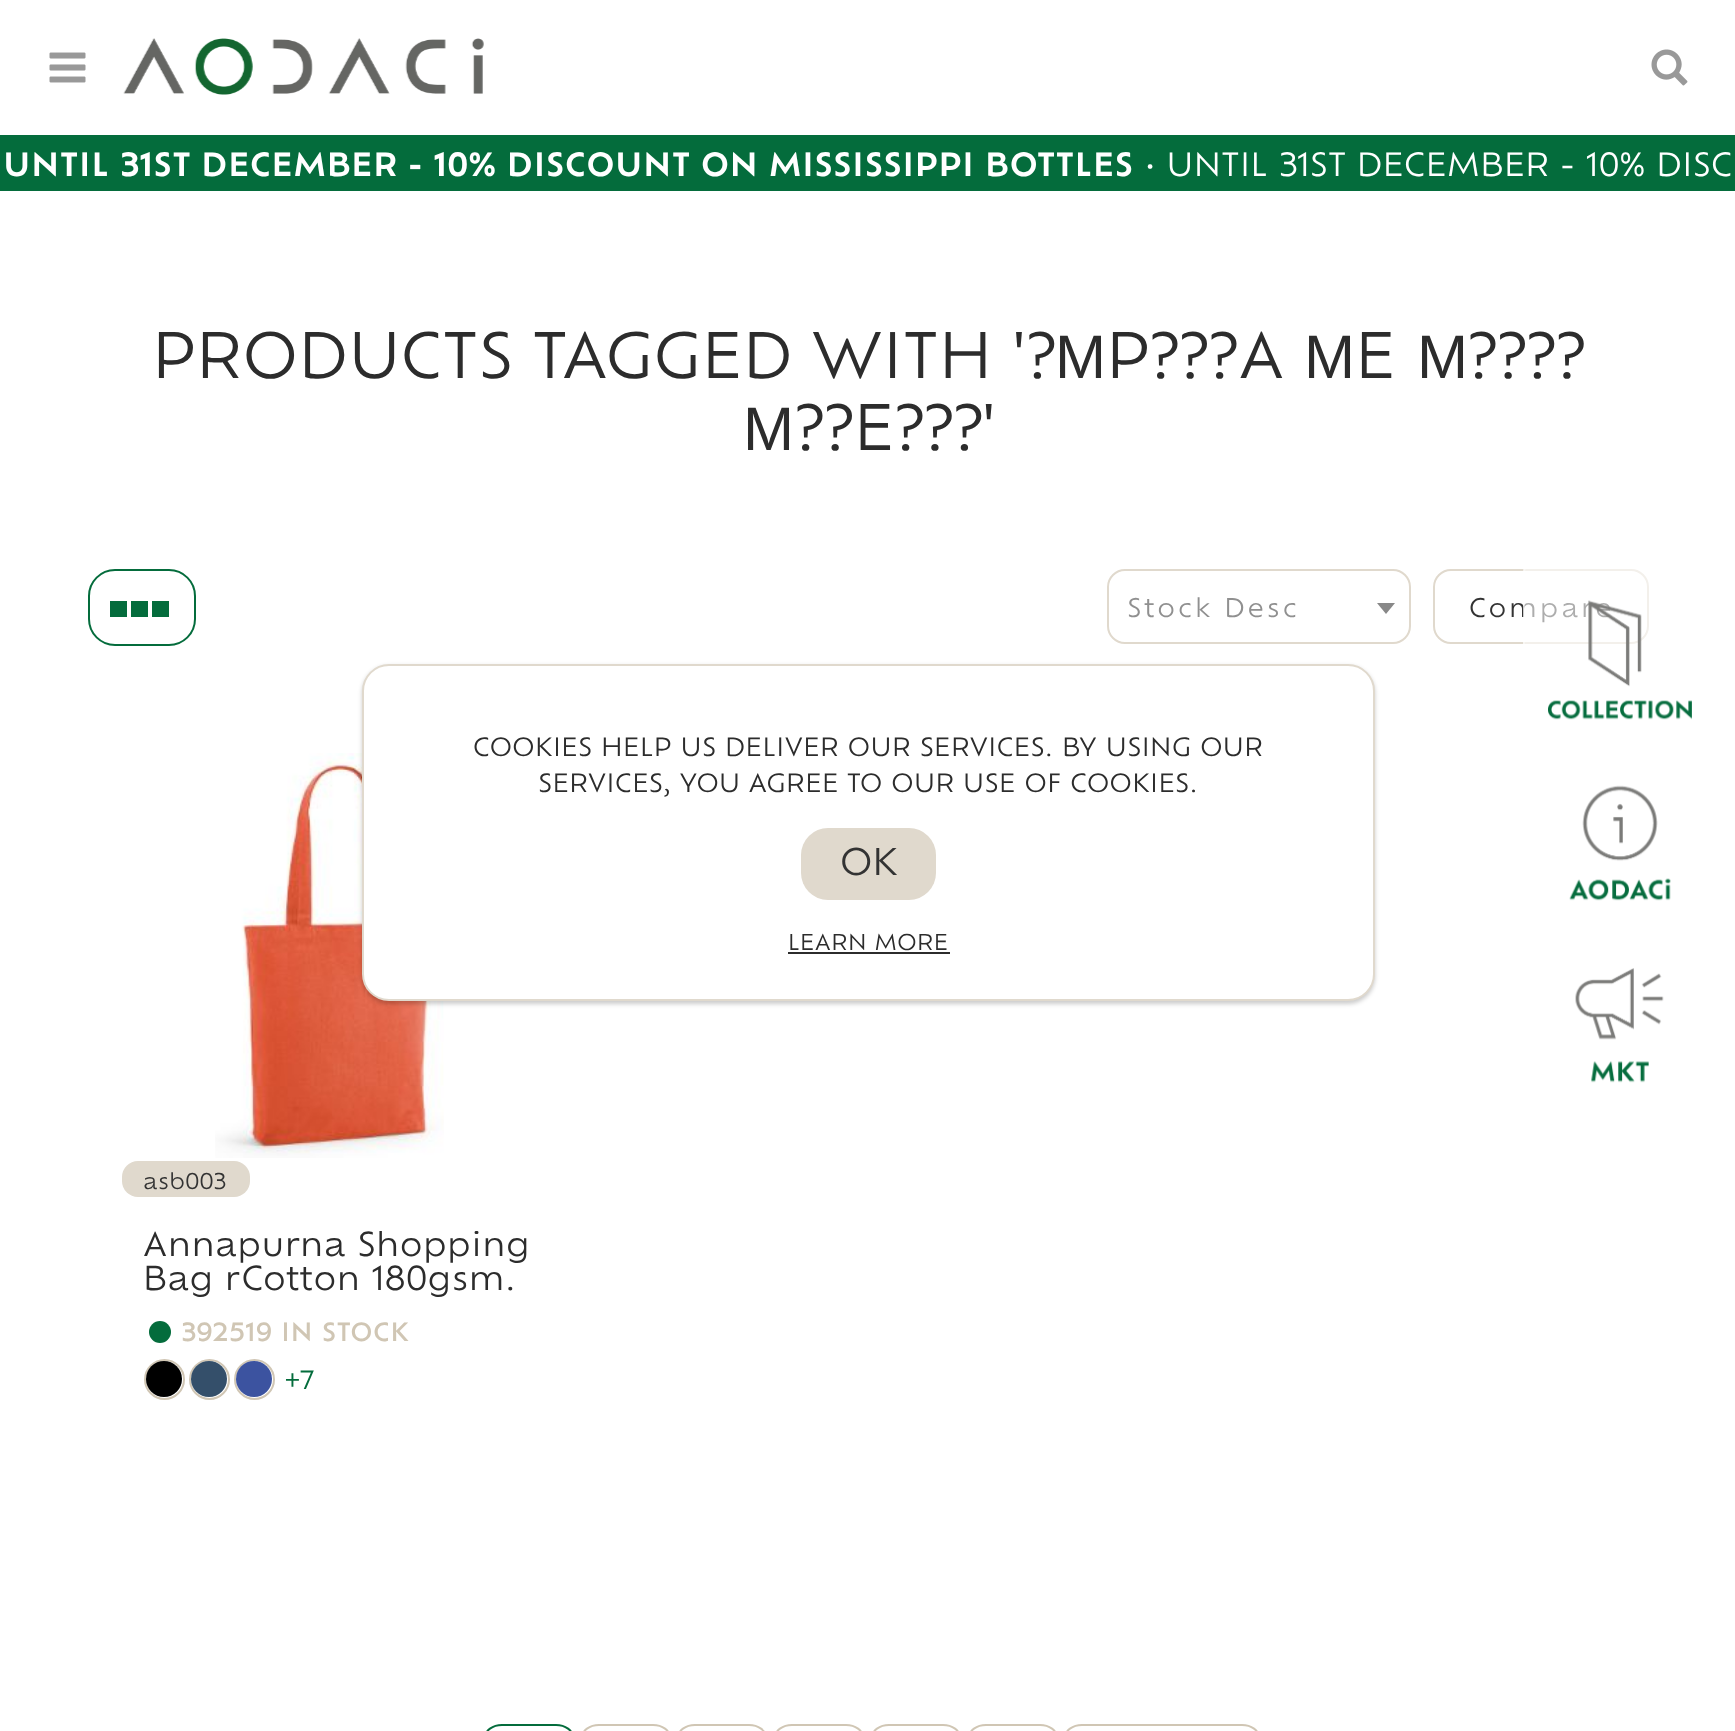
<svg xmlns="http://www.w3.org/2000/svg" width="1735" height="1731" viewBox="0 0 1735 1731">
  <defs>
    <clipPath id="clip1"><rect x="144" y="1231" width="443" height="67"/></clipPath>
  </defs>
  <rect width="100%" height="100%" fill="rgb(255,255,255)"/>
  <image x="49" y="52" width="37" height="31" href="pic1.png"/>
  <image x="123" y="38" width="361" height="57" href="pic2.png"/>
  <image x="1651" y="49" width="37" height="37" href="pic3.png"/>
  <rect x="0" y="135" width="1735" height="56" fill="rgb(4,108,60)"/>
  <text x="3" y="176" font-family="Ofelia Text" font-size="31.5" font-weight="600" letter-spacing="0.45" fill="rgb(255,255,255)">UNTIL 31ST DECEMBER - 10% DISCOUNT ON MISSISSIPPI BOTTLES</text>
  <text x="1145" y="176" font-family="Ofelia Text" font-size="31.5" letter-spacing="0.45" fill="rgb(255,255,255)">• UNTIL 31ST DECEMBER - 10% DISC</text>
  <rect x="1434" y="570" width="214" height="73" rx="17" fill="none" stroke="rgb(224,217,205)" stroke-width="2"/>
  <text x="1469" y="617" font-family="Ofelia Text" font-size="25.25" letter-spacing="2.9" fill="rgb(51,51,51)">Compare</text>
  <rect x="1523" y="563" width="180" height="555" rx="9" fill="rgba(255,255,255,0.6)"/>
  <rect x="1524" y="564" width="178" height="553" rx="8" fill="none" stroke="rgba(255,255,255,0.4)" stroke-width="2"/>
  <image x="1548" y="600" width="144" height="120" href="pic4.png"/>
  <image x="1569" y="785" width="102" height="116" href="pic5.png"/>
  <image x="1575" y="968" width="89" height="115" href="pic6.png"/>
  <text x="152" y="378" font-family="Ofelia Text" font-size="61.25" letter-spacing="0.45" fill="rgb(44,44,44)">PRODUCTS TAGGED WITH '?</text>
  <text x="1055" y="378" font-family="Liberation Sans" font-size="61.25" letter-spacing="0.45" fill="rgb(44,44,44)">Μ</text>
  <text x="1106" y="378" font-family="Ofelia Text" font-size="61.25" letter-spacing="0.45" fill="rgb(44,44,44)">P???A</text>
  <text x="1304" y="378" font-family="Liberation Sans" font-size="61.25" letter-spacing="0.45" fill="rgb(44,44,44)">Μ</text>
  <text x="1355" y="378" font-family="Ofelia Text" font-size="61.25" letter-spacing="0.45" fill="rgb(44,44,44)">E</text>
  <text x="1417" y="378" font-family="Liberation Sans" font-size="61.25" letter-spacing="0.45" fill="rgb(44,44,44)">Μ</text>
  <text x="1468" y="378" font-family="Ofelia Text" font-size="61.25" letter-spacing="0.45" fill="rgb(44,44,44)">????</text>
  <text x="743" y="450" font-family="Liberation Sans" font-size="61.25" letter-spacing="0.45" fill="rgb(44,44,44)">Μ</text>
  <text x="795" y="450" font-family="Ofelia Text" font-size="61.25" letter-spacing="0.45" fill="rgb(44,44,44)">??E???'</text>
  <rect x="89" y="570" width="106" height="75" rx="26" fill="none" stroke="rgb(4,108,60)" stroke-width="2"/>
  <path d="M110 601H127V617H110ZM131 601H148V617H131ZM152 601H169V617H152Z" fill="rgb(4,108,60)"/>
  <rect x="1108" y="570" width="302" height="73" rx="17" fill="none" stroke="rgb(224,217,205)" stroke-width="2"/>
  <text x="1127" y="617" font-family="Ofelia Text" font-size="25.25" letter-spacing="2.9" fill="rgb(144,144,144)">Stock Desc</text>
  <path d="M1377 603H1395L1386 614Z" fill="rgb(136,136,136)"/>
  <image x="215" y="753" width="229" height="405" href="pic7.png"/>
  <rect x="122" y="1161" width="128" height="36" rx="16" fill="rgb(224,217,205)"/>
  <text x="143" y="1189" font-family="Ofelia Text" font-size="21.5" letter-spacing="0.45" fill="rgb(51,51,51)">asb003</text>
  <g clip-path="url(#clip1)">
    <text x="143" y="1256" font-family="Ofelia Text" font-size="32.4" letter-spacing="0.45" fill="rgb(44,44,44)">Annapurna Shopping</text>
  </g>
  <text x="143" y="1290" font-family="Ofelia Text" font-size="32.4" letter-spacing="0.45" fill="rgb(44,44,44)">Bag rCotton 180gsm.</text>
  <circle cx="160" cy="1332" r="11" fill="rgb(4,108,60)"/>
  <text x="181" y="1341" font-family="Ofelia Text" font-size="24.75" font-weight="500" letter-spacing="0.45" fill="rgb(208,198,180)">392519 IN STOCK</text>
  <circle cx="164.5" cy="1379.5" r="19.5" fill="none" stroke="rgb(208,198,180)" stroke-width="2"/>
  <circle cx="164" cy="1379" r="18" fill="rgb(0,0,0)"/>
  <circle cx="209.5" cy="1379.5" r="19.5" fill="none" stroke="rgb(208,198,180)" stroke-width="2"/>
  <circle cx="209" cy="1379" r="18" fill="rgb(52,79,106)"/>
  <circle cx="254.5" cy="1379.5" r="19.5" fill="none" stroke="rgb(208,198,180)" stroke-width="2"/>
  <circle cx="254" cy="1379" r="18" fill="rgb(60,83,160)"/>
  <text x="285" y="1389" font-family="Ofelia Text" font-size="24.75" letter-spacing="0.45" fill="rgb(4,108,60)">+7</text>
  <rect x="485" y="1725" width="88" height="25" rx="17" fill="none" stroke="rgb(4,108,60)" stroke-width="2"/>
  <rect x="582" y="1725" width="88" height="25" rx="17" fill="none" stroke="rgb(208,198,180)" stroke-width="2"/>
  <rect x="678" y="1725" width="88" height="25" rx="17" fill="none" stroke="rgb(208,198,180)" stroke-width="2"/>
  <rect x="775" y="1725" width="88" height="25" rx="17" fill="none" stroke="rgb(208,198,180)" stroke-width="2"/>
  <rect x="872" y="1725" width="88" height="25" rx="17" fill="none" stroke="rgb(208,198,180)" stroke-width="2"/>
  <rect x="969" y="1725" width="88" height="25" rx="17" fill="none" stroke="rgb(208,198,180)" stroke-width="2"/>
  <rect x="1065" y="1725" width="194" height="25" rx="17" fill="none" stroke="rgb(208,198,180)" stroke-width="2"/>
  <rect x="362" y="666" width="1013" height="338" rx="27" fill="rgba(0,0,0,0.2)" filter="blur(2px)"/>
  <rect x="363" y="665" width="1011" height="335" rx="26" fill="rgb(255,255,255)" stroke="rgb(224,217,205)" stroke-width="2"/>
  <g font-family="Ofelia Text" font-size="24.75" letter-spacing="0.45" fill="rgb(44,44,44)">
    <text x="473" y="756">COOKIES HELP US DELIVER OUR SERVICES. BY USING OUR</text>
    <text x="538" y="792">SERVICES, YOU AGREE TO OUR USE OF COOKIES.</text>
  </g>
  <rect x="801" y="828" width="135" height="72" rx="27" fill="rgb(224,217,205)"/>
  <text x="840" y="875" font-family="Ofelia Text" font-size="36" fill="rgb(51,51,51)">OK</text>
  <text x="788" y="950" font-family="Ofelia Text" font-size="21.5" letter-spacing="0.45" fill="rgb(44,44,44)">LEARN MORE</text>
  <rect x="788" y="952" width="162" height="2" fill="rgb(44,44,44)"/>
</svg>
